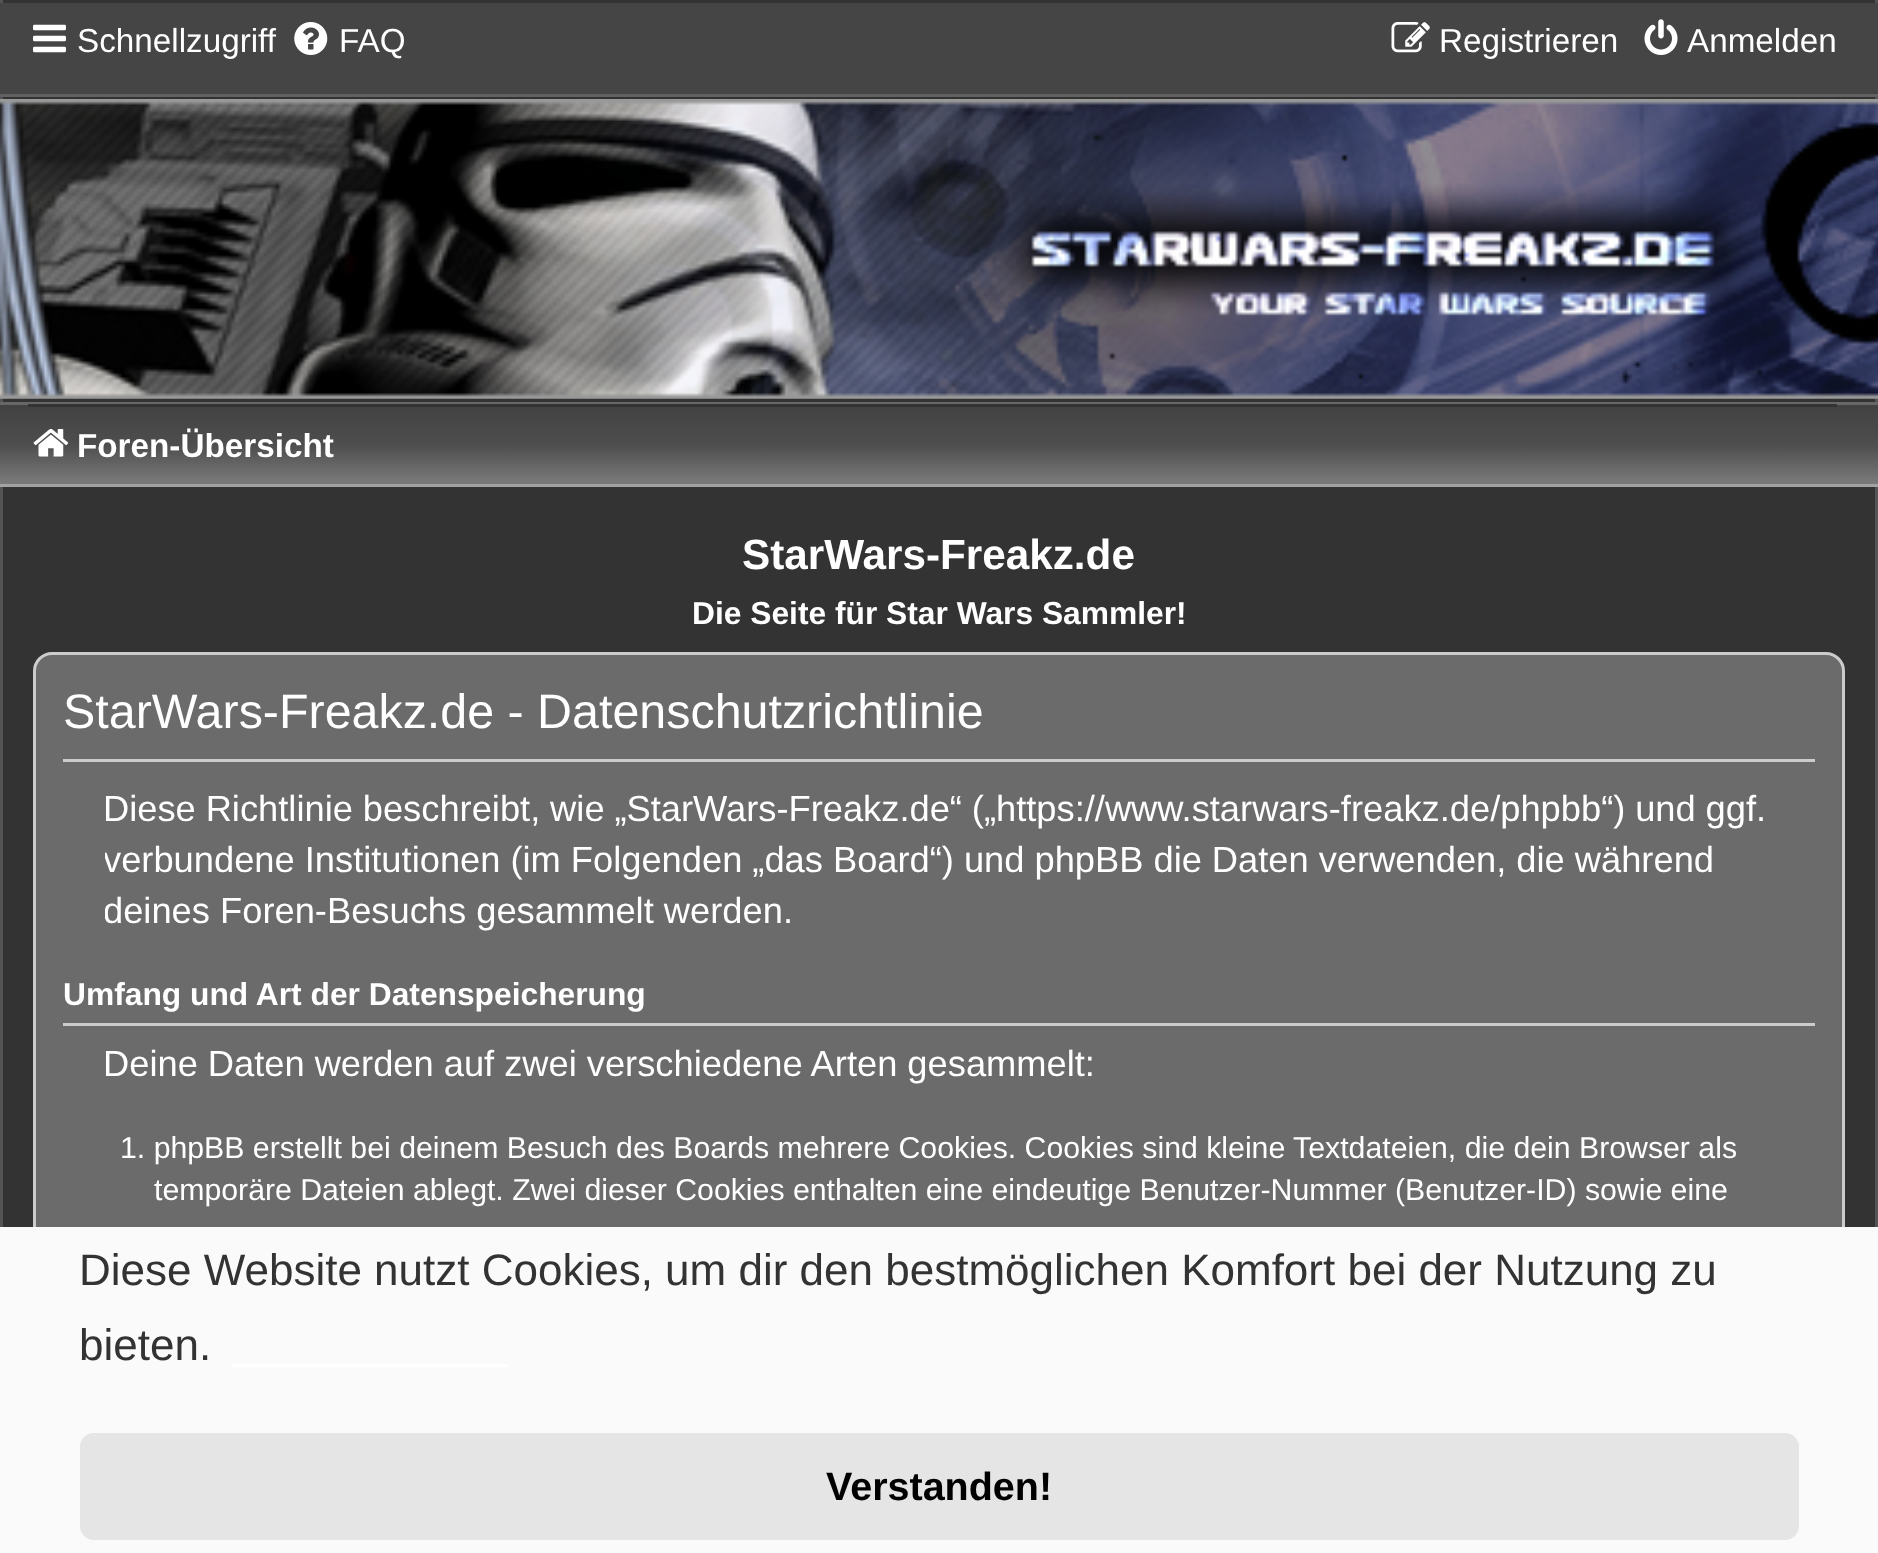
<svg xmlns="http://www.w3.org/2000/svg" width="1878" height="1553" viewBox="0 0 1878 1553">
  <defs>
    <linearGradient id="g1" gradientUnits="userSpaceOnUse" x1="939" y1="404" x2="939" y2="528"><stop offset="0" stop-color="rgb(65,65,65)"/><stop offset="0.33" stop-color="rgb(78,78,78)"/><stop offset="0.73" stop-color="rgb(135,135,135)"/><stop offset="1" stop-color="rgb(250,250,250)"/></linearGradient>
    <clipPath id="clip1"><rect x="105" y="787" width="1710" height="151"/></clipPath>
  </defs>
  <rect width="100%" height="100%" fill="rgb(51,51,51)"/>
  <rect x="1.5" y="-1.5" width="1875" height="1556" fill="none" stroke="rgb(83,84,83)" stroke-width="3"/>
  <rect x="0" y="3" width="1878" height="91" fill="rgb(69,69,69)"/>
  <image x="33" y="24" width="33" height="29" href="pic1.png"/>
  <text x="77" y="52" font-family="Liberation Sans" font-size="33.25" fill="rgb(255,255,255)">Schnellzugriff</text>
  <image x="294" y="22" width="34" height="33" href="pic2.png"/>
  <text x="339" y="52" font-family="Liberation Sans" font-size="33.25" fill="rgb(255,255,255)">FAQ</text>
  <image x="1391" y="22" width="39" height="31" href="pic3.png"/>
  <text x="1439" y="52" font-family="Liberation Sans" font-size="33.25" fill="rgb(255,255,255)">Registrieren</text>
  <image x="1644" y="19" width="34" height="36" href="pic4.png"/>
  <text x="1687" y="52" font-family="Liberation Sans" font-size="33.25" fill="rgb(255,255,255)">Anmelden</text>
  <rect x="0" y="94" width="1878" height="3" fill="rgb(97,97,97)"/>
  <image x="0" y="99" width="1878" height="300" href="pic5.png"/>
  <rect x="0" y="405" width="1878" height="79" fill="url(#g1)"/>
  <rect x="0" y="402" width="1878" height="3" fill="rgb(102,103,102)"/>
  <rect x="0" y="484" width="1878" height="3" fill="rgb(161,162,161)"/>
  <rect x="28" y="404" width="1809" height="3" fill="rgb(51,51,51)"/>
  <image x="33" y="429" width="36" height="28" href="pic6.png"/>
  <text x="77" y="457" font-family="Liberation Sans" font-size="33.25" font-weight="bold" fill="rgb(255,255,255)">Foren-Übersicht</text>
  <text x="742" y="569" font-family="Liberation Sans" font-size="42.25" font-weight="bold" fill="rgb(255,255,255)">StarWars-Freakz.de</text>
  <text x="692" y="624" font-family="Liberation Sans" font-size="31.75" font-weight="bold" fill="rgb(255,255,255)">Die Seite für Star Wars Sammler!</text>
  <rect x="34.5" y="653.5" width="1809" height="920" rx="17.5" fill="rgb(107,107,107)" stroke="rgb(204,204,204)" stroke-width="3"/>
  <rect x="63" y="759" width="1752" height="3" fill="rgb(204,204,204)"/>
  <text x="63" y="728" font-family="Liberation Sans" font-size="48.4" fill="rgb(255,255,255)">StarWars-Freakz.de - Datenschutzrichtlinie</text>
  <text x="103" y="821" word-spacing="-0.25" font-family="Liberation Sans" font-size="36.3" fill="rgb(255,255,255)">Diese Richtlinie beschreibt, wie „StarWars-Freakz.de“ („https://www.starwars-freakz.de/phpbb“) und ggf.</text>
  <g clip-path="url(#clip1)">
    <g font-family="Liberation Sans" font-size="36.3" fill="rgb(255,255,255)">
      <text>
        <tspan x="103" y="872" word-spacing="-0.1">verbundene Institutionen (im Folgenden „das Board“) und phpBB die Daten verwenden, die während</tspan>
        <tspan x="103" y="923">deines Foren-Besuchs gesammelt werden.</tspan>
      </text>
    </g>
  </g>
  <rect x="63" y="1023" width="1752" height="3" fill="rgb(204,204,204)"/>
  <text x="63" y="1005" font-family="Liberation Sans" font-size="31.75" font-weight="bold" fill="rgb(255,255,255)">Umfang und Art der Datenspeicherung</text>
  <text x="103" y="1076" word-spacing="-0.1" font-family="Liberation Sans" font-size="36.3" fill="rgb(255,255,255)">Deine Daten werden auf zwei verschiedene Arten gesammelt:</text>
  <g font-family="Liberation Sans" font-size="30.25" fill="rgb(255,255,255)">
    <text x="120" y="1158">1. phpBB erstellt bei deinem Besuch des Boards mehrere Cookies. Cookies sind kleine Textdateien, die dein Browser als</text>
    <text x="154" y="1200">temporäre Dateien ablegt. Zwei dieser Cookies enthalten eine eindeutige Benutzer-Nummer (Benutzer-ID) sowie eine</text>
  </g>
  <rect x="0" y="1227" width="1878" height="326" fill="rgb(250,250,250)"/>
  <g font-family="Liberation Sans" font-size="44" fill="rgb(51,51,51)">
    <text>
      <tspan x="79" y="1285">Diese Website nutzt Cookies, um dir den bestmöglichen Komfort bei der Nutzung zu</tspan>
      <tspan x="79" y="1360">bieten.</tspan>
    </text>
  </g>
  <rect x="231" y="1364" width="278" height="3" fill="rgb(254,254,254)"/>
  <rect x="80" y="1433" width="1719" height="107" rx="14" fill="rgb(229,229,229)"/>
  <text x="826" y="1500" font-family="Liberation Sans" font-size="39.5" font-weight="bold" fill="rgb(0,0,0)">Verstanden!</text>
</svg>
